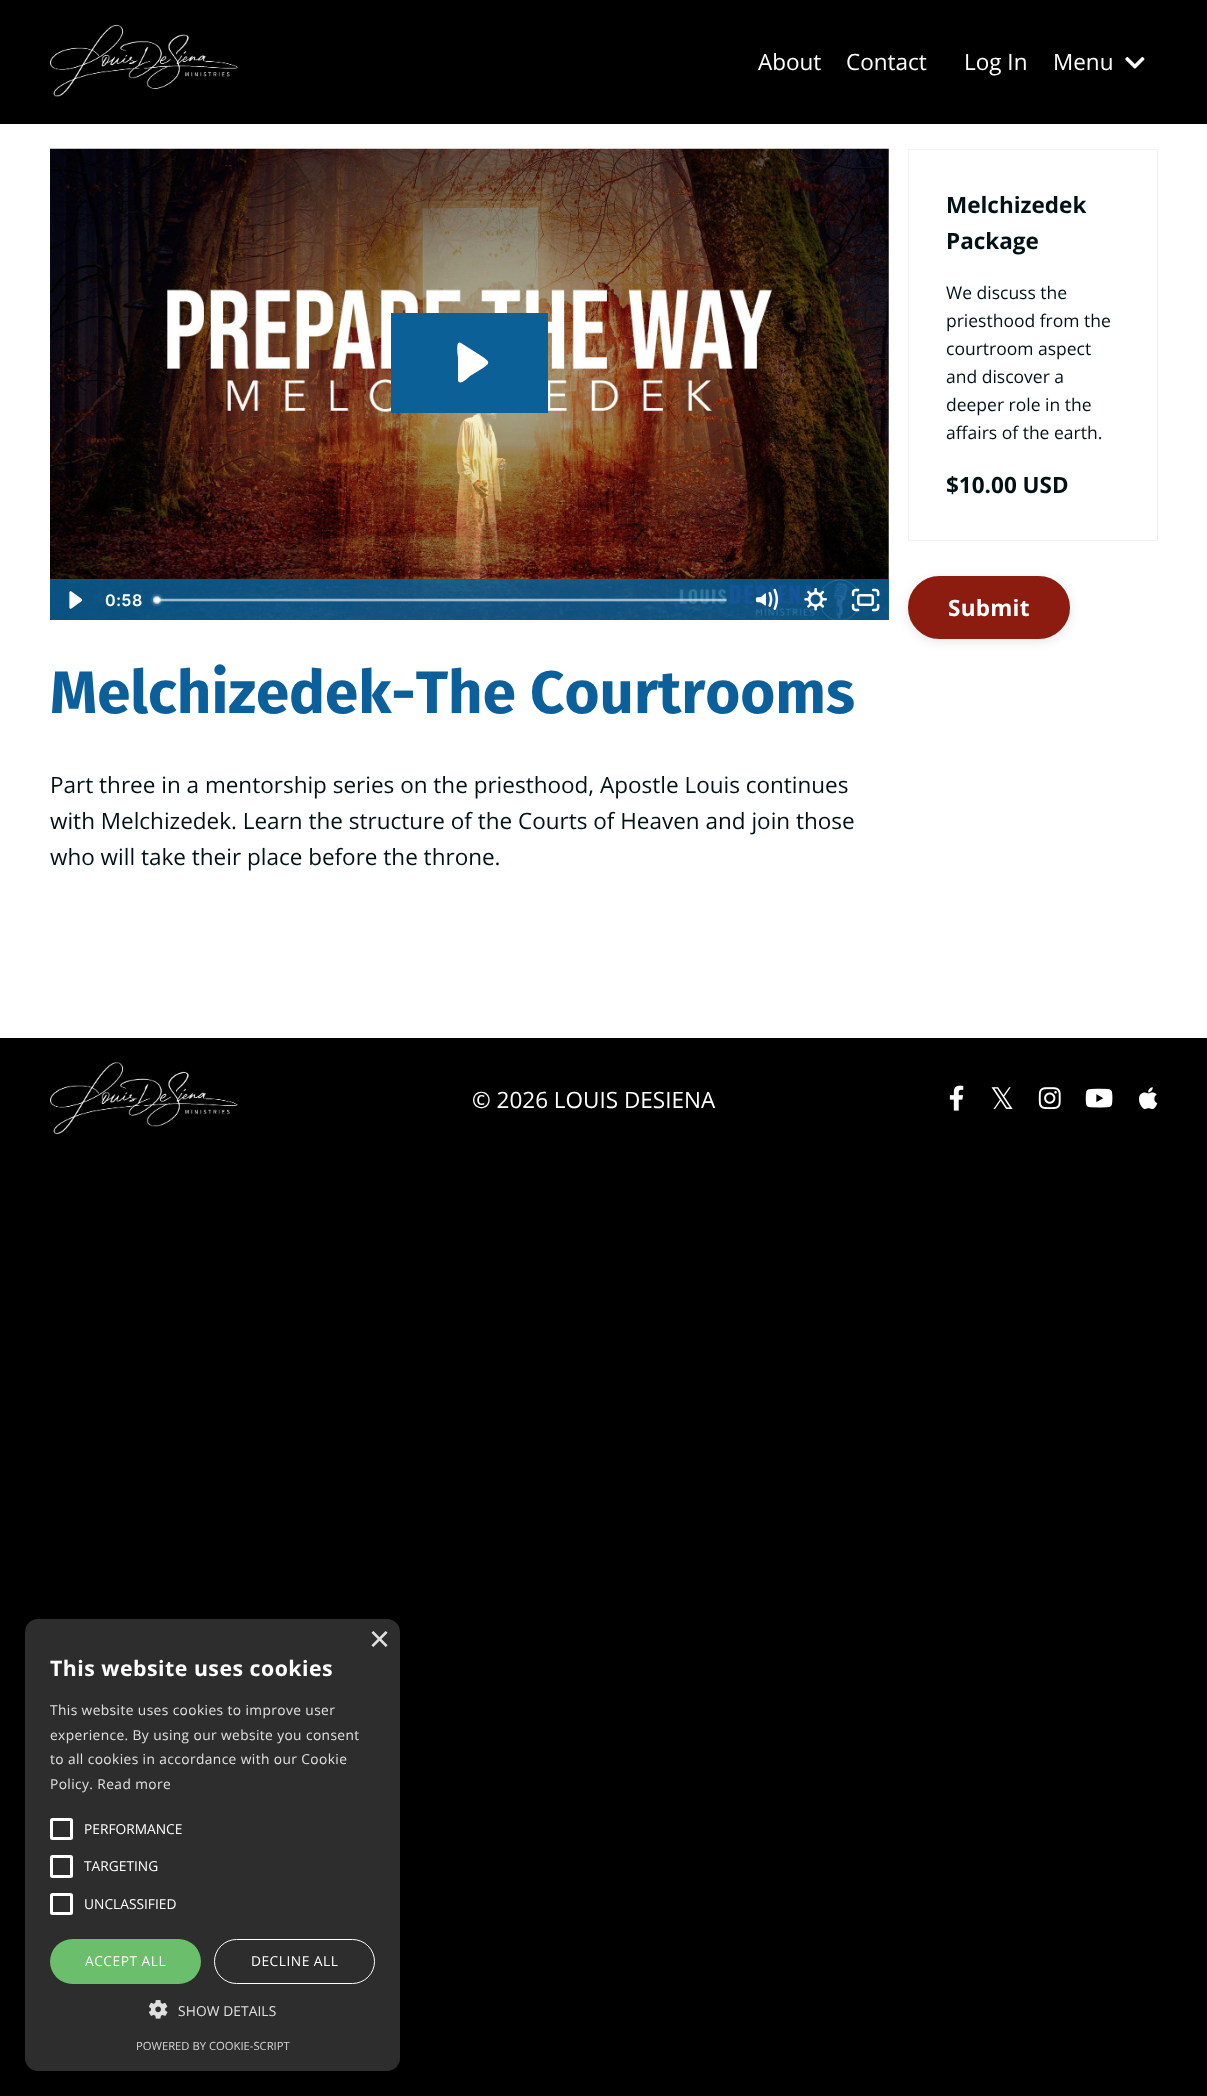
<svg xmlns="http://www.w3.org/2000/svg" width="1207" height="2096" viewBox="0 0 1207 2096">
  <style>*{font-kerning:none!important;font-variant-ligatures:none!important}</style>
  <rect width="100%" height="100%" fill="rgb(255,255,255)"/>
  <rect x="0" y="0" width="1207" height="124" fill="rgb(0,0,0)"/>
  <image x="50" y="25" width="188" height="72" href="pic1.png"/>
  <g font-family="Open Sans" font-size="22.5" fill="rgb(255,255,255)">
    <text x="758" y="70">About</text>
    <text x="846" y="70">Contact</text>
    <text x="964" y="70">Log In</text>
    <text x="1053" y="70">Menu</text>
  </g>
  <image x="1125" y="57" width="20" height="12" href="pic2.png"/>
  <rect x="908.5" y="149.5" width="249" height="391" fill="none" stroke="rgb(242,242,242)"/>
  <g font-family="Open Sans" font-size="22.5" font-weight="bold" fill="rgb(1,17,21)">
    <text>
      <tspan x="946" y="213">Melchizedek</tspan>
      <tspan x="946" y="249">Package</tspan>
    </text>
  </g>
  <g font-family="Open Sans" font-size="17.5" fill="rgb(1,17,21)">
    <text>
      <tspan x="946" y="299">We discuss the</tspan>
      <tspan x="946" y="327">priesthood from the</tspan>
      <tspan x="946" y="355">courtroom aspect</tspan>
      <tspan x="946" y="383">and discover a</tspan>
      <tspan x="946" y="411">deeper role in the</tspan>
      <tspan x="946" y="439">affairs of the earth.</tspan>
    </text>
  </g>
  <text x="946" y="493" font-family="Open Sans" font-size="22.5" font-weight="bold" fill="rgb(1,17,21)">$10.00 USD</text>
  <rect x="908" y="579" width="162" height="62" rx="31" fill="rgba(0,0,0,0.1)" filter="blur(6px)"/>
  <rect x="909.5" y="577.5" width="159" height="60" rx="30" fill="rgb(140,28,16)" stroke="rgb(140,28,16)" stroke-width="3"/>
  <text x="948" y="616" font-family="Open Sans" font-size="22.5" font-weight="bold" letter-spacing="0.25" fill="rgb(255,255,255)">Submit</text>
  <image x="50" y="148" width="839" height="472" href="pic3.png"/>
  <rect x="391" y="313" width="157" height="100" fill="rgb(11,96,151)"/>
  <path d="M461 343C455 339 458 356 458 357V381L459 382C462 384 468 378 470 376L483 368C490 363 490 362 483 357Z" fill="rgb(255,255,255)" fill-rule="evenodd"/>
  <rect x="50" y="579" width="839" height="41" fill="rgba(11,96,151,0.85)"/>
  <image x="69" y="591" width="14" height="18" href="pic4.png"/>
  <text x="105" y="606" font-family="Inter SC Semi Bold" font-size="16" font-weight="600" letter-spacing="0.5" fill="rgb(255,255,255)">0:58</text>
  <image x="150" y="593" width="577" height="14" href="pic5.png"/>
  <image x="755" y="588" width="24" height="22" href="pic6.png"/>
  <image x="804" y="588" width="23" height="23" href="pic7.png"/>
  <image x="851" y="588" width="29" height="24" href="pic8.png"/>
  <text x="50" y="713" font-family="Fira Sans" font-size="60" font-weight="bold" fill="rgb(11,96,155)">Melchizedek-The Courtrooms</text>
  <g font-family="Open Sans" font-size="22.5" fill="rgb(1,17,21)">
    <text>
      <tspan x="50" y="793">Part three in a mentorship series on the priesthood, Apostle Louis continues</tspan>
      <tspan x="50" y="829">with Melchizedek. Learn the structure of the Courts of Heaven and join those</tspan>
      <tspan x="50" y="865">who will take their place before the throne.</tspan>
    </text>
  </g>
  <rect x="0" y="1038" width="1207" height="1058" fill="rgb(0,0,0)"/>
  <image x="50" y="1062" width="188" height="72" href="pic9.png"/>
  <text x="472" y="1108" font-family="Open Sans" font-size="22.5" fill="rgb(255,255,255)">© 2026 LOUIS DESIENA</text>
  <image x="949" y="1085" width="15" height="26" href="pic10.png"/>
  <text x="990" y="1109" font-family="DejaVu Sans" font-size="30" fill="rgb(255,255,255)">𝕏</text>
  <image x="1038" y="1087" width="23" height="23" href="pic11.png"/>
  <image x="1085" y="1088" width="28" height="20" href="pic12.png"/>
  <image x="1139" y="1087" width="19" height="23" href="pic13.png"/>
  <rect x="25" y="1619" width="375" height="452" rx="13" fill="rgb(45,45,45)"/>
  <text x="369" y="1651" font-family="Liberation Sans" font-size="36" fill="rgb(224,224,224)">×</text>
  <text x="50" y="1676" font-family="Open Sans" font-size="21.25" font-weight="bold" letter-spacing="0.5" fill="rgb(255,255,255)">This website uses cookies</text>
  <g font-family="Open Sans" font-size="13.75" letter-spacing="0.4" fill="rgb(224,224,224)">
    <text>
      <tspan x="50" y="1715">This website uses cookies to improve user</tspan>
      <tspan x="50" y="1740">experience. By using our website you consent</tspan>
      <tspan x="50" y="1764">to all cookies in accordance with our Cookie</tspan>
      <tspan x="50" y="1789">Policy. Read more</tspan>
    </text>
  </g>
  <rect x="51.5" y="1819.5" width="20" height="19" rx="1" fill="none" stroke="rgb(255,255,255)" stroke-width="3"/>
  <text x="84" y="1834" font-family="Open Sans" font-size="13.75" fill="rgb(255,255,255)">PERFORMANCE</text>
  <rect x="51.5" y="1856.5" width="20" height="20" rx="1" fill="none" stroke="rgb(255,255,255)" stroke-width="3"/>
  <text x="84" y="1871" font-family="Open Sans" font-size="13.75" fill="rgb(255,255,255)">TARGETING</text>
  <rect x="51.5" y="1894.5" width="20" height="19" rx="1" fill="none" stroke="rgb(255,255,255)" stroke-width="3"/>
  <text x="84" y="1909" font-family="Open Sans" font-size="13.75" fill="rgb(255,255,255)">UNCLASSIFIED</text>
  <rect x="50" y="1939" width="151" height="45" rx="22.5" fill="rgb(107,190,107)"/>
  <text x="85" y="1966" font-family="Open Sans" font-size="13.75" letter-spacing="0.5" fill="rgb(255,255,255)">ACCEPT ALL</text>
  <rect x="214.5" y="1939.5" width="160" height="44" rx="22" fill="none" stroke="rgb(255,255,255)"/>
  <text x="251" y="1966" font-family="Open Sans" font-size="13.75" letter-spacing="0.5" fill="rgb(255,255,255)">DECLINE ALL</text>
  <image x="149" y="2000" width="19" height="19" href="pic14.png"/>
  <text x="178" y="2016" font-family="Open Sans" font-size="13.75" letter-spacing="0.1" fill="rgb(224,224,224)">SHOW DETAILS</text>
  <text x="136" y="2050" font-family="Open Sans" font-size="11.25" fill="rgb(213,213,213)">POWERED BY COOKIE-SCRIPT</text>
</svg>
